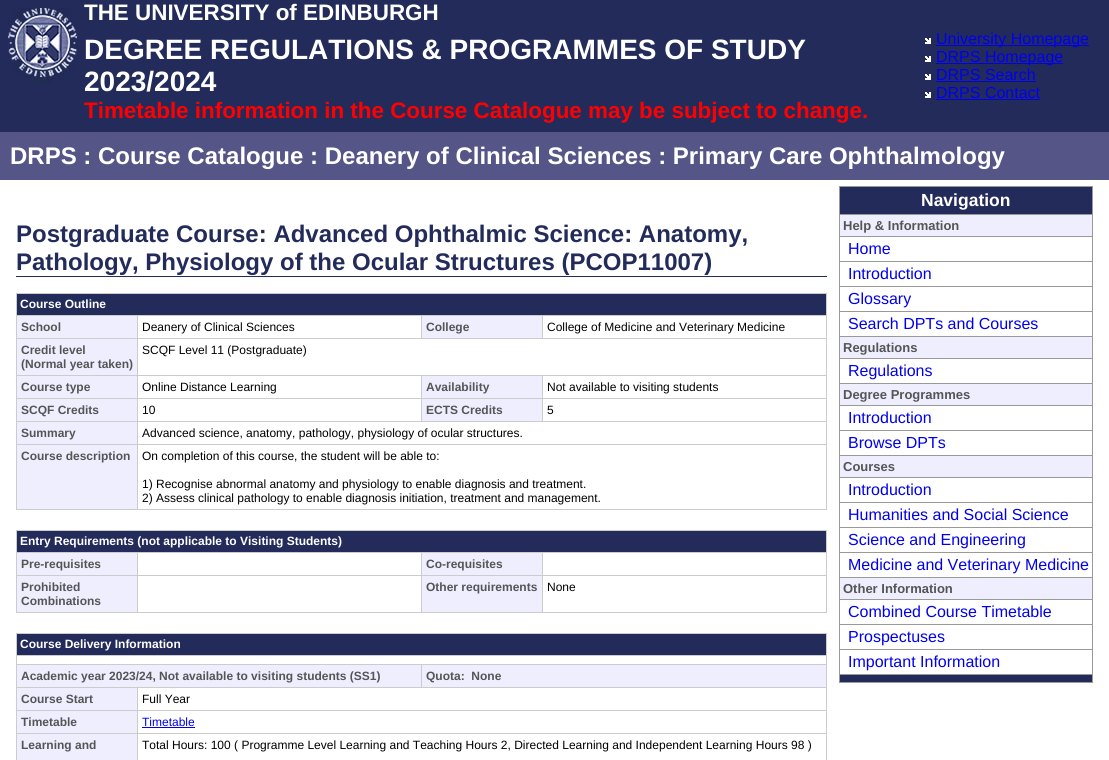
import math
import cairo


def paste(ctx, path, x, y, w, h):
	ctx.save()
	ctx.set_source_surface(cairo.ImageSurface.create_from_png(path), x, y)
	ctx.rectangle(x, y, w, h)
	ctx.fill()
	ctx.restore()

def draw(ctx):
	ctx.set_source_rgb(1, 1, 1)
	ctx.paint()
	ctx.set_source_rgb(0.137, 0.169, 0.353)
	ctx.rectangle(0, 0, 1109, 132)
	ctx.fill()
	paste(ctx, 'media/1.png', 8, 8, 72, 76)
	ctx.select_font_face('Liberation Sans', cairo.FONT_SLANT_NORMAL, cairo.FONT_WEIGHT_BOLD)
	ctx.set_font_size(22.4)
	ctx.set_source_rgb(1, 1, 1)
	ctx.move_to(84, 20)
	ctx.show_text('THE UNIVERSITY of EDINBURGH')
	ctx.set_font_size(28)
	ctx.move_to(84, 59)
	ctx.show_text('DEGREE REGULATIONS & PROGRAMMES OF STUDY')
	ctx.move_to(84, 91)
	ctx.show_text('2023/2024')
	ctx.set_font_size(22.4)
	ctx.set_source_rgb(1, 0, 0)
	ctx.move_to(84, 118)
	ctx.show_text('Timetable information in the Course Catalogue may be subject to change.')
	paste(ctx, 'media/2.png', 925, 38, 6, 6)
	ctx.set_source_rgb(0, 0, 0.933)
	ctx.rectangle(936, 45, 153, 1)
	ctx.fill()
	ctx.select_font_face('Liberation Sans')
	ctx.set_font_size(16)
	ctx.move_to(936, 44)
	ctx.show_text('University Homepage')
	paste(ctx, 'media/2.png', 925, 56, 6, 6)
	ctx.rectangle(936, 63, 127, 1)
	ctx.fill()
	ctx.move_to(936, 62)
	ctx.show_text('DRPS Homepage')
	paste(ctx, 'media/2.png', 925, 74, 6, 6)
	ctx.move_to(936, 80)
	ctx.show_text('DRPS Search')
	ctx.rectangle(936, 81, 100, 1)
	ctx.fill()
	paste(ctx, 'media/2.png', 925, 92, 6, 6)
	ctx.move_to(936, 98)
	ctx.show_text('DRPS Contact')
	ctx.rectangle(936, 99, 104, 1)
	ctx.fill()
	ctx.set_source_rgb(0.333, 0.333, 0.533)
	ctx.rectangle(0, 132, 1109, 48)
	ctx.fill()
	ctx.select_font_face('Liberation Sans', cairo.FONT_SLANT_NORMAL, cairo.FONT_WEIGHT_BOLD)
	ctx.set_font_size(24)
	ctx.set_source_rgb(1, 1, 1)
	ctx.move_to(10, 164)
	ctx.show_text('DRPS : Course Catalogue : Deanery of Clinical Sciences : Primary Care Ophthalmology')
	ctx.set_source_rgb(0.137, 0.169, 0.353)
	ctx.rectangle(16, 276, 811, 1)
	ctx.fill()
	ctx.move_to(16, 242)
	ctx.show_text('Postgraduate Course: Advanced Ophthalmic Science: Anatomy,')
	ctx.move_to(16, 270)
	ctx.show_text('Pathology, Physiology of the Ocular Structures (PCOP11007)')
	ctx.set_source_rgb(0.8, 0.8, 0.8)
	ctx.rectangle(16, 293, 811, 1)
	ctx.rectangle(826, 293, 1, 217)
	ctx.rectangle(16, 509, 811, 1)
	ctx.rectangle(16, 293, 1, 217)
	ctx.fill()
	ctx.set_source_rgb(0.137, 0.169, 0.353)
	ctx.rectangle(17, 294, 809, 21)
	ctx.fill()
	ctx.set_font_size(12)
	ctx.set_source_rgb(1, 1, 1)
	ctx.move_to(20, 308)
	ctx.show_text('Course Outline')
	ctx.set_source_rgb(0.933, 0.933, 1)
	ctx.rectangle(17, 316, 120, 22)
	ctx.fill()
	ctx.set_source_rgb(0.8, 0.8, 0.8)
	ctx.rectangle(542, 315, 285, 1)
	ctx.rectangle(137, 338, 690, 1)
	ctx.rectangle(542, 315, 1, 24)
	ctx.rectangle(421, 315, 122, 1)
	ctx.rectangle(421, 315, 1, 24)
	ctx.rectangle(137, 315, 285, 1)
	ctx.rectangle(542, 375, 285, 1)
	ctx.rectangle(542, 398, 285, 1)
	ctx.rectangle(137, 421, 690, 1)
	ctx.rectangle(542, 398, 1, 24)
	ctx.rectangle(421, 398, 122, 1)
	ctx.rectangle(542, 375, 1, 24)
	ctx.rectangle(421, 375, 122, 1)
	ctx.rectangle(421, 398, 1, 24)
	ctx.rectangle(137, 398, 285, 1)
	ctx.rectangle(421, 375, 1, 24)
	ctx.rectangle(137, 375, 285, 1)
	ctx.rectangle(137, 444, 690, 1)
	ctx.rectangle(137, 444, 1, 66)
	ctx.rectangle(16, 444, 122, 1)
	ctx.rectangle(137, 421, 1, 24)
	ctx.rectangle(16, 421, 122, 1)
	ctx.rectangle(137, 398, 1, 24)
	ctx.rectangle(16, 398, 122, 1)
	ctx.rectangle(137, 375, 1, 24)
	ctx.rectangle(16, 375, 122, 1)
	ctx.rectangle(137, 338, 1, 38)
	ctx.rectangle(16, 338, 122, 1)
	ctx.rectangle(137, 315, 1, 24)
	ctx.rectangle(16, 315, 122, 1)
	ctx.fill()
	ctx.set_source_rgb(0.333, 0.333, 0.333)
	ctx.move_to(21, 331)
	ctx.show_text('School')
	ctx.select_font_face('Liberation Sans')
	ctx.set_source_rgb(0, 0, 0)
	ctx.move_to(142, 331)
	ctx.show_text('Deanery of Clinical Sciences')
	ctx.set_source_rgb(0.933, 0.933, 1)
	ctx.rectangle(422, 316, 120, 22)
	ctx.fill()
	ctx.select_font_face('Liberation Sans', cairo.FONT_SLANT_NORMAL, cairo.FONT_WEIGHT_BOLD)
	ctx.set_source_rgb(0.333, 0.333, 0.333)
	ctx.move_to(426, 331)
	ctx.show_text('College')
	ctx.select_font_face('Liberation Sans')
	ctx.set_source_rgb(0, 0, 0)
	ctx.move_to(547, 331)
	ctx.show_text('College of Medicine and Veterinary Medicine')
	ctx.set_source_rgb(0.933, 0.933, 1)
	ctx.rectangle(17, 339, 120, 36)
	ctx.fill()
	ctx.select_font_face('Liberation Sans', cairo.FONT_SLANT_NORMAL, cairo.FONT_WEIGHT_BOLD)
	ctx.set_source_rgb(0.333, 0.333, 0.333)
	ctx.move_to(21, 354)
	ctx.show_text('Credit level')
	ctx.move_to(21, 368)
	ctx.show_text('(Normal year taken)')
	ctx.select_font_face('Liberation Sans')
	ctx.set_source_rgb(0, 0, 0)
	ctx.move_to(142, 354)
	ctx.show_text('SCQF Level 11 (Postgraduate)')
	ctx.set_source_rgb(0.933, 0.933, 1)
	ctx.rectangle(17, 376, 120, 22)
	ctx.fill()
	ctx.select_font_face('Liberation Sans', cairo.FONT_SLANT_NORMAL, cairo.FONT_WEIGHT_BOLD)
	ctx.set_source_rgb(0.333, 0.333, 0.333)
	ctx.move_to(21, 391)
	ctx.show_text('Course type')
	ctx.select_font_face('Liberation Sans')
	ctx.set_source_rgb(0, 0, 0)
	ctx.move_to(142, 391)
	ctx.show_text('Online Distance Learning')
	ctx.set_source_rgb(0.933, 0.933, 1)
	ctx.rectangle(422, 376, 120, 22)
	ctx.fill()
	ctx.select_font_face('Liberation Sans', cairo.FONT_SLANT_NORMAL, cairo.FONT_WEIGHT_BOLD)
	ctx.set_source_rgb(0.333, 0.333, 0.333)
	ctx.move_to(426, 391)
	ctx.show_text('Availability')
	ctx.select_font_face('Liberation Sans')
	ctx.set_source_rgb(0, 0, 0)
	ctx.move_to(547, 391)
	ctx.show_text('Not available to visiting students')
	ctx.set_source_rgb(0.933, 0.933, 1)
	ctx.rectangle(17, 399, 120, 22)
	ctx.fill()
	ctx.select_font_face('Liberation Sans', cairo.FONT_SLANT_NORMAL, cairo.FONT_WEIGHT_BOLD)
	ctx.set_source_rgb(0.333, 0.333, 0.333)
	ctx.move_to(21, 414)
	ctx.show_text('SCQF Credits')
	ctx.select_font_face('Liberation Sans')
	ctx.set_source_rgb(0, 0, 0)
	ctx.move_to(142, 414)
	ctx.show_text('10')
	ctx.set_source_rgb(0.933, 0.933, 1)
	ctx.rectangle(422, 399, 120, 22)
	ctx.fill()
	ctx.select_font_face('Liberation Sans', cairo.FONT_SLANT_NORMAL, cairo.FONT_WEIGHT_BOLD)
	ctx.set_source_rgb(0.333, 0.333, 0.333)
	ctx.move_to(426, 414)
	ctx.show_text('ECTS Credits')
	ctx.select_font_face('Liberation Sans')
	ctx.set_source_rgb(0, 0, 0)
	ctx.move_to(547, 414)
	ctx.show_text('5')
	ctx.set_source_rgb(0.933, 0.933, 1)
	ctx.rectangle(17, 422, 120, 22)
	ctx.fill()
	ctx.select_font_face('Liberation Sans', cairo.FONT_SLANT_NORMAL, cairo.FONT_WEIGHT_BOLD)
	ctx.set_source_rgb(0.333, 0.333, 0.333)
	ctx.move_to(21, 437)
	ctx.show_text('Summary')
	ctx.select_font_face('Liberation Sans')
	ctx.set_source_rgb(0, 0, 0)
	ctx.move_to(142, 437)
	ctx.show_text('Advanced science, anatomy, pathology, physiology of ocular structures.')
	ctx.set_source_rgb(0.933, 0.933, 1)
	ctx.rectangle(17, 445, 120, 64)
	ctx.fill()
	ctx.select_font_face('Liberation Sans', cairo.FONT_SLANT_NORMAL, cairo.FONT_WEIGHT_BOLD)
	ctx.set_source_rgb(0.333, 0.333, 0.333)
	ctx.move_to(21, 460)
	ctx.show_text('Course description')
	ctx.select_font_face('Liberation Sans')
	ctx.set_source_rgb(0, 0, 0)
	for x, y, s in [
		(142, 460, 'On completion of this course, the student will be able to:'),
		(142, 488, '1) Recognise abnormal anatomy and physiology to enable diagnosis and treatment.'),
		(142, 502, '2) Assess clinical pathology to enable diagnosis initiation, treatment and management.'),
	]:
		ctx.move_to(x, y)
		ctx.show_text(s)
	ctx.set_source_rgb(0.8, 0.8, 0.8)
	ctx.rectangle(16, 530, 811, 1)
	ctx.rectangle(826, 530, 1, 83)
	ctx.rectangle(16, 612, 811, 1)
	ctx.rectangle(16, 530, 1, 83)
	ctx.fill()
	ctx.set_source_rgb(0.137, 0.169, 0.353)
	ctx.rectangle(17, 531, 809, 21)
	ctx.fill()
	ctx.select_font_face('Liberation Sans', cairo.FONT_SLANT_NORMAL, cairo.FONT_WEIGHT_BOLD)
	ctx.set_source_rgb(1, 1, 1)
	ctx.move_to(20, 545)
	ctx.show_text('Entry Requirements (not applicable to Visiting Students)')
	ctx.set_source_rgb(0.933, 0.933, 1)
	ctx.rectangle(17, 553, 120, 22)
	ctx.fill()
	ctx.set_source_rgb(0.8, 0.8, 0.8)
	ctx.rectangle(542, 552, 285, 1)
	ctx.rectangle(542, 575, 285, 1)
	ctx.rectangle(542, 575, 1, 38)
	ctx.rectangle(421, 575, 122, 1)
	ctx.rectangle(542, 552, 1, 24)
	ctx.rectangle(421, 552, 122, 1)
	ctx.rectangle(421, 575, 1, 38)
	ctx.rectangle(137, 575, 285, 1)
	ctx.rectangle(421, 552, 1, 24)
	ctx.rectangle(137, 552, 285, 1)
	ctx.rectangle(137, 575, 1, 38)
	ctx.rectangle(16, 575, 122, 1)
	ctx.rectangle(137, 552, 1, 24)
	ctx.rectangle(16, 552, 122, 1)
	ctx.fill()
	ctx.set_source_rgb(0.333, 0.333, 0.333)
	ctx.move_to(21, 568)
	ctx.show_text('Pre-requisites')
	ctx.set_source_rgb(0.933, 0.933, 1)
	ctx.rectangle(422, 553, 120, 22)
	ctx.fill()
	ctx.set_source_rgb(0.333, 0.333, 0.333)
	ctx.move_to(426, 568)
	ctx.show_text('Co-requisites')
	ctx.set_source_rgb(0.933, 0.933, 1)
	ctx.rectangle(17, 576, 120, 36)
	ctx.fill()
	ctx.set_source_rgb(0.333, 0.333, 0.333)
	ctx.move_to(21, 591)
	ctx.show_text('Prohibited')
	ctx.move_to(21, 605)
	ctx.show_text('Combinations')
	ctx.set_source_rgb(0.933, 0.933, 1)
	ctx.rectangle(422, 576, 120, 36)
	ctx.fill()
	ctx.set_source_rgb(0.333, 0.333, 0.333)
	ctx.move_to(426, 591)
	ctx.show_text('Other requirements')
	ctx.select_font_face('Liberation Sans')
	ctx.set_source_rgb(0, 0, 0)
	ctx.move_to(547, 591)
	ctx.show_text('None')
	ctx.set_source_rgb(0.8, 0.8, 0.8)
	ctx.rectangle(16, 633, 811, 1)
	ctx.rectangle(826, 633, 1, 127)
	ctx.rectangle(16, 633, 1, 127)
	ctx.fill()
	ctx.set_source_rgb(0.137, 0.169, 0.353)
	ctx.rectangle(17, 634, 809, 21)
	ctx.fill()
	ctx.select_font_face('Liberation Sans', cairo.FONT_SLANT_NORMAL, cairo.FONT_WEIGHT_BOLD)
	ctx.set_source_rgb(1, 1, 1)
	ctx.move_to(20, 648)
	ctx.show_text('Course Delivery Information')
	ctx.set_source_rgb(0.8, 0.8, 0.8)
	ctx.rectangle(16, 655, 811, 1)
	ctx.fill()
	ctx.set_source_rgb(0.933, 0.933, 1)
	ctx.rectangle(17, 665, 404, 22)
	ctx.fill()
	ctx.set_source_rgb(0.8, 0.8, 0.8)
	ctx.rectangle(421, 664, 406, 1)
	ctx.rectangle(137, 687, 690, 1)
	ctx.rectangle(421, 664, 1, 24)
	ctx.rectangle(16, 664, 406, 1)
	ctx.fill()
	ctx.set_source_rgb(0.333, 0.333, 0.333)
	ctx.move_to(21, 680)
	ctx.show_text('Academic year 2023/24, Not available to visiting students (SS1)')
	ctx.set_source_rgb(0.933, 0.933, 1)
	ctx.rectangle(422, 665, 404, 22)
	ctx.fill()
	ctx.set_source_rgb(0.333, 0.333, 0.333)
	ctx.move_to(426, 680)
	ctx.show_text('Quota:  None')
	ctx.set_source_rgb(0.933, 0.933, 1)
	ctx.rectangle(17, 688, 120, 22)
	ctx.fill()
	ctx.set_source_rgb(0.8, 0.8, 0.8)
	ctx.rectangle(137, 710, 690, 1)
	ctx.rectangle(137, 733, 690, 1)
	ctx.rectangle(137, 733, 1, 27)
	ctx.rectangle(16, 733, 122, 1)
	ctx.rectangle(137, 710, 1, 24)
	ctx.rectangle(16, 710, 122, 1)
	ctx.rectangle(137, 687, 1, 24)
	ctx.rectangle(16, 687, 122, 1)
	ctx.fill()
	ctx.set_source_rgb(0.333, 0.333, 0.333)
	ctx.move_to(21, 703)
	ctx.show_text('Course Start')
	ctx.select_font_face('Liberation Sans')
	ctx.set_source_rgb(0, 0, 0)
	ctx.move_to(142, 703)
	ctx.show_text('Full Year')
	ctx.set_source_rgb(0.933, 0.933, 1)
	ctx.rectangle(17, 711, 120, 22)
	ctx.fill()
	ctx.select_font_face('Liberation Sans', cairo.FONT_SLANT_NORMAL, cairo.FONT_WEIGHT_BOLD)
	ctx.set_source_rgb(0.333, 0.333, 0.333)
	ctx.move_to(21, 726)
	ctx.show_text('Timetable')
	ctx.select_font_face('Liberation Sans')
	ctx.set_source_rgb(0, 0, 0.933)
	ctx.move_to(142, 726)
	ctx.show_text('Timetable')
	ctx.rectangle(142, 727, 53, 1)
	ctx.fill()
	ctx.set_source_rgb(0.933, 0.933, 1)
	ctx.rectangle(17, 734, 120, 26)
	ctx.fill()
	ctx.select_font_face('Liberation Sans', cairo.FONT_SLANT_NORMAL, cairo.FONT_WEIGHT_BOLD)
	ctx.set_source_rgb(0.333, 0.333, 0.333)
	ctx.move_to(21, 749)
	ctx.show_text('Learning and')
	ctx.select_font_face('Liberation Sans')
	ctx.set_source_rgb(0, 0, 0)
	ctx.move_to(142, 749)
	ctx.show_text('Total Hours: 100 ( Programme Level Learning and Teaching Hours 2, Directed Learning and Independent Learning Hours 98 )')
	ctx.set_source_rgb(0.6, 0.6, 0.6)
	ctx.rectangle(839, 186, 254, 497)
	ctx.fill()
	ctx.set_source_rgb(0.137, 0.169, 0.353)
	ctx.rectangle(840, 187, 252, 27)
	ctx.fill()
	ctx.select_font_face('Liberation Sans', cairo.FONT_SLANT_NORMAL, cairo.FONT_WEIGHT_BOLD)
	ctx.set_font_size(17.5)
	ctx.set_source_rgb(1, 1, 1)
	ctx.move_to(921, 206)
	ctx.show_text('Navigation')
	ctx.set_source_rgb(0.933, 0.933, 1)
	ctx.rectangle(840, 215, 252, 21)
	ctx.fill()
	ctx.set_font_size(13)
	ctx.set_source_rgb(0.333, 0.333, 0.333)
	ctx.move_to(843, 230)
	ctx.show_text('Help & Information')
	ctx.set_source_rgb(1, 1, 1)
	ctx.rectangle(840, 237, 252, 24)
	ctx.fill()
	ctx.select_font_face('Liberation Sans')
	ctx.set_font_size(16)
	ctx.set_source_rgb(0, 0, 0.933)
	ctx.move_to(848, 254)
	ctx.show_text('Home')
	ctx.set_source_rgb(1, 1, 1)
	ctx.rectangle(840, 262, 252, 24)
	ctx.fill()
	ctx.set_source_rgb(0, 0, 0.933)
	ctx.move_to(848, 279)
	ctx.show_text('Introduction')
	ctx.set_source_rgb(1, 1, 1)
	ctx.rectangle(840, 287, 252, 24)
	ctx.fill()
	ctx.set_source_rgb(0, 0, 0.933)
	ctx.move_to(848, 304)
	ctx.show_text('Glossary')
	ctx.set_source_rgb(1, 1, 1)
	ctx.rectangle(840, 312, 252, 24)
	ctx.fill()
	ctx.set_source_rgb(0, 0, 0.933)
	ctx.move_to(848, 329)
	ctx.show_text('Search DPTs and Courses')
	ctx.set_source_rgb(0.933, 0.933, 1)
	ctx.rectangle(840, 337, 252, 21)
	ctx.fill()
	ctx.select_font_face('Liberation Sans', cairo.FONT_SLANT_NORMAL, cairo.FONT_WEIGHT_BOLD)
	ctx.set_font_size(13)
	ctx.set_source_rgb(0.333, 0.333, 0.333)
	ctx.move_to(843, 352)
	ctx.show_text('Regulations')
	ctx.set_source_rgb(1, 1, 1)
	ctx.rectangle(840, 359, 252, 24)
	ctx.fill()
	ctx.select_font_face('Liberation Sans')
	ctx.set_font_size(16)
	ctx.set_source_rgb(0, 0, 0.933)
	ctx.move_to(848, 376)
	ctx.show_text('Regulations')
	ctx.set_source_rgb(0.933, 0.933, 1)
	ctx.rectangle(840, 384, 252, 21)
	ctx.fill()
	ctx.select_font_face('Liberation Sans', cairo.FONT_SLANT_NORMAL, cairo.FONT_WEIGHT_BOLD)
	ctx.set_font_size(13)
	ctx.set_source_rgb(0.333, 0.333, 0.333)
	ctx.move_to(843, 399)
	ctx.show_text('Degree Programmes')
	ctx.set_source_rgb(1, 1, 1)
	ctx.rectangle(840, 406, 252, 24)
	ctx.fill()
	ctx.select_font_face('Liberation Sans')
	ctx.set_font_size(16)
	ctx.set_source_rgb(0, 0, 0.933)
	ctx.move_to(848, 423)
	ctx.show_text('Introduction')
	ctx.set_source_rgb(1, 1, 1)
	ctx.rectangle(840, 431, 252, 24)
	ctx.fill()
	ctx.set_source_rgb(0, 0, 0.933)
	ctx.move_to(848, 448)
	ctx.show_text('Browse DPTs')
	ctx.set_source_rgb(0.933, 0.933, 1)
	ctx.rectangle(840, 456, 252, 21)
	ctx.fill()
	ctx.select_font_face('Liberation Sans', cairo.FONT_SLANT_NORMAL, cairo.FONT_WEIGHT_BOLD)
	ctx.set_font_size(13)
	ctx.set_source_rgb(0.333, 0.333, 0.333)
	ctx.move_to(843, 471)
	ctx.show_text('Courses')
	ctx.set_source_rgb(1, 1, 1)
	ctx.rectangle(840, 478, 252, 24)
	ctx.fill()
	ctx.select_font_face('Liberation Sans')
	ctx.set_font_size(16)
	ctx.set_source_rgb(0, 0, 0.933)
	ctx.move_to(848, 495)
	ctx.show_text('Introduction')
	ctx.set_source_rgb(1, 1, 1)
	ctx.rectangle(840, 503, 252, 24)
	ctx.fill()
	ctx.set_source_rgb(0, 0, 0.933)
	ctx.move_to(848, 520)
	ctx.show_text('Humanities and Social Science')
	ctx.set_source_rgb(1, 1, 1)
	ctx.rectangle(840, 528, 252, 24)
	ctx.fill()
	ctx.set_source_rgb(0, 0, 0.933)
	ctx.move_to(848, 545)
	ctx.show_text('Science and Engineering')
	ctx.set_source_rgb(1, 1, 1)
	ctx.rectangle(840, 553, 252, 24)
	ctx.fill()
	ctx.set_source_rgb(0, 0, 0.933)
	ctx.move_to(848, 570)
	ctx.show_text('Medicine and Veterinary Medicine')
	ctx.set_source_rgb(0.933, 0.933, 1)
	ctx.rectangle(840, 578, 252, 21)
	ctx.fill()
	ctx.select_font_face('Liberation Sans', cairo.FONT_SLANT_NORMAL, cairo.FONT_WEIGHT_BOLD)
	ctx.set_font_size(13)
	ctx.set_source_rgb(0.333, 0.333, 0.333)
	ctx.move_to(843, 593)
	ctx.show_text('Other Information')
	ctx.set_source_rgb(1, 1, 1)
	ctx.rectangle(840, 600, 252, 24)
	ctx.fill()
	ctx.select_font_face('Liberation Sans')
	ctx.set_font_size(16)
	ctx.set_source_rgb(0, 0, 0.933)
	ctx.move_to(848, 617)
	ctx.show_text('Combined Course Timetable')
	ctx.set_source_rgb(1, 1, 1)
	ctx.rectangle(840, 625, 252, 24)
	ctx.fill()
	ctx.set_source_rgb(0, 0, 0.933)
	ctx.move_to(848, 642)
	ctx.show_text('Prospectuses')
	ctx.set_source_rgb(1, 1, 1)
	ctx.rectangle(840, 650, 252, 24)
	ctx.fill()
	ctx.set_source_rgb(0, 0, 0.933)
	ctx.move_to(848, 667)
	ctx.show_text('Important Information')
	ctx.set_source_rgb(0.137, 0.169, 0.353)
	ctx.rectangle(840, 675, 252, 7)
	ctx.fill()


surface = cairo.ImageSurface(cairo.FORMAT_RGB24, 1109, 760)
ctx = cairo.Context(surface)
options = cairo.FontOptions()
options.set_hint_metrics(cairo.HINT_METRICS_OFF)
options.set_hint_style(cairo.HINT_STYLE_NONE)
ctx.set_font_options(options)
ctx.set_miter_limit(4)
draw(ctx)
surface.write_to_png('image.png')
